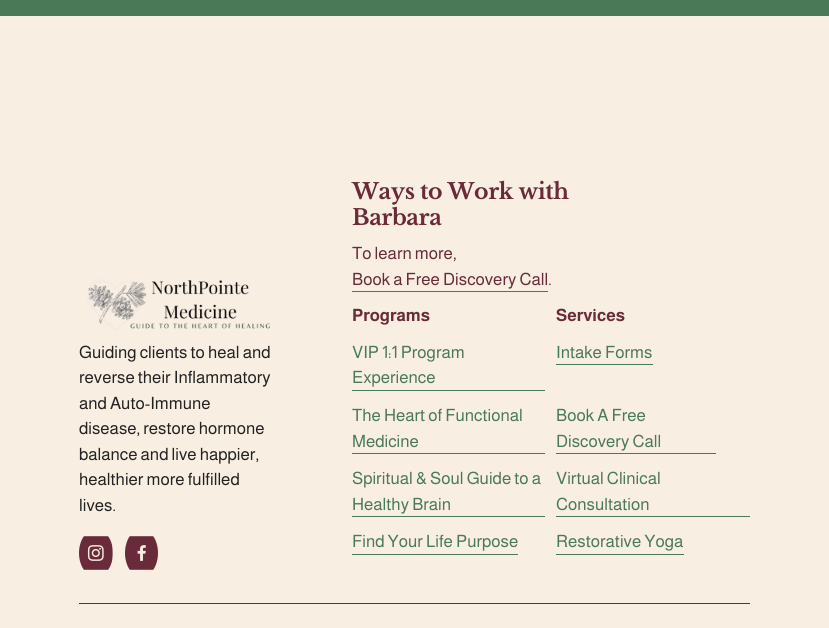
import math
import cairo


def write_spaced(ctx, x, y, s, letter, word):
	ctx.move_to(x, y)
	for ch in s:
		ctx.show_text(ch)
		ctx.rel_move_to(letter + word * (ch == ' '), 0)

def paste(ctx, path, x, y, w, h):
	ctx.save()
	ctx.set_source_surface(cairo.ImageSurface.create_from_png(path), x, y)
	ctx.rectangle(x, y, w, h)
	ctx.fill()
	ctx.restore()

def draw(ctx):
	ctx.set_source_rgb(0.286, 0.475, 0.337)
	ctx.paint()
	ctx.set_source_rgb(0.969, 0.933, 0.886)
	ctx.rectangle(0, 16, 829, 612)
	ctx.fill()
	ctx.select_font_face('Libre Baskerville', cairo.FONT_SLANT_NORMAL, cairo.FONT_WEIGHT_BOLD)
	ctx.set_font_size(22)
	ctx.set_source_rgb(0.412, 0.169, 0.224)
	write_spaced(ctx, 352, 199, 'Ways to Work with', -0.4, 0)
	write_spaced(ctx, 352, 225, 'Barbara', -0.4, 0)
	ctx.select_font_face('Almarai')
	ctx.set_font_size(17)
	ctx.move_to(352, 259)
	ctx.show_text('To learn more,')
	ctx.set_source_rgb(0.286, 0.475, 0.337)
	ctx.rectangle(352, 291, 196, 1)
	ctx.fill()
	ctx.set_source_rgb(0.412, 0.169, 0.224)
	ctx.move_to(352, 285)
	ctx.show_text('Book a Free Discovery Call.')
	paste(ctx, 'media/1.png', 87, 279, 183, 52)
	ctx.select_font_face('Almarai', cairo.FONT_SLANT_NORMAL, cairo.FONT_WEIGHT_BOLD)
	ctx.move_to(352, 321)
	ctx.show_text('Programs')
	ctx.move_to(556, 321)
	ctx.show_text('Services')
	ctx.select_font_face('Almarai')
	ctx.set_source_rgb(0.137, 0.133, 0.133)
	for x, y, s in [
		(79, 358, 'Guiding clients to heal and'),
		(79, 383, 'reverse their Inflammatory'),
		(79, 409, 'and Auto-Immune'),
		(79, 434, 'disease, restore hormone'),
		(79, 460, 'balance and live happier,'),
		(79, 485, 'healthier more fulfilled'),
		(79, 511, 'lives.'),
	]:
		ctx.move_to(x, y)
		ctx.show_text(s)
	ctx.set_source_rgb(0.286, 0.475, 0.337)
	ctx.rectangle(352, 390, 193, 1)
	ctx.fill()
	ctx.move_to(352, 358)
	ctx.show_text('VIP 1:1 Program')
	ctx.move_to(352, 383)
	ctx.show_text('Experience')
	ctx.rectangle(556, 364, 97, 1)
	ctx.fill()
	ctx.move_to(556, 358)
	ctx.show_text('Intake Forms')
	ctx.rectangle(352, 453, 193, 1)
	ctx.fill()
	ctx.move_to(352, 421)
	ctx.show_text('The Heart of Functional')
	ctx.move_to(352, 447)
	ctx.show_text('Medicine')
	ctx.rectangle(556, 453, 160, 1)
	ctx.fill()
	ctx.move_to(556, 421)
	ctx.show_text('Book A Free')
	ctx.move_to(556, 447)
	ctx.show_text('Discovery Call')
	ctx.rectangle(352, 516, 193, 1)
	ctx.fill()
	ctx.move_to(352, 484)
	ctx.show_text('Spiritual & Soul Guide to a')
	ctx.move_to(352, 510)
	ctx.show_text('Healthy Brain')
	ctx.rectangle(556, 516, 194, 1)
	ctx.fill()
	ctx.move_to(556, 484)
	ctx.show_text('Virtual Clinical')
	ctx.move_to(556, 510)
	ctx.show_text('Consultation')
	paste(ctx, 'media/2.png', 79, 536, 34, 34)
	paste(ctx, 'media/3.png', 125, 536, 33, 34)
	ctx.rectangle(352, 554, 166, 1)
	ctx.fill()
	ctx.move_to(352, 547)
	ctx.show_text('Find Your Life Purpose')
	ctx.rectangle(556, 554, 128, 1)
	ctx.fill()
	ctx.move_to(556, 547)
	ctx.show_text('Restorative Yoga')
	ctx.set_source_rgb(0.412, 0.169, 0.224)
	ctx.rectangle(79, 603, 671, 1)
	ctx.fill()


surface = cairo.ImageSurface(cairo.FORMAT_RGB24, 829, 628)
ctx = cairo.Context(surface)
options = cairo.FontOptions()
options.set_hint_metrics(cairo.HINT_METRICS_OFF)
options.set_hint_style(cairo.HINT_STYLE_NONE)
ctx.set_font_options(options)
ctx.set_miter_limit(4)
draw(ctx)
surface.write_to_png('image.png')
